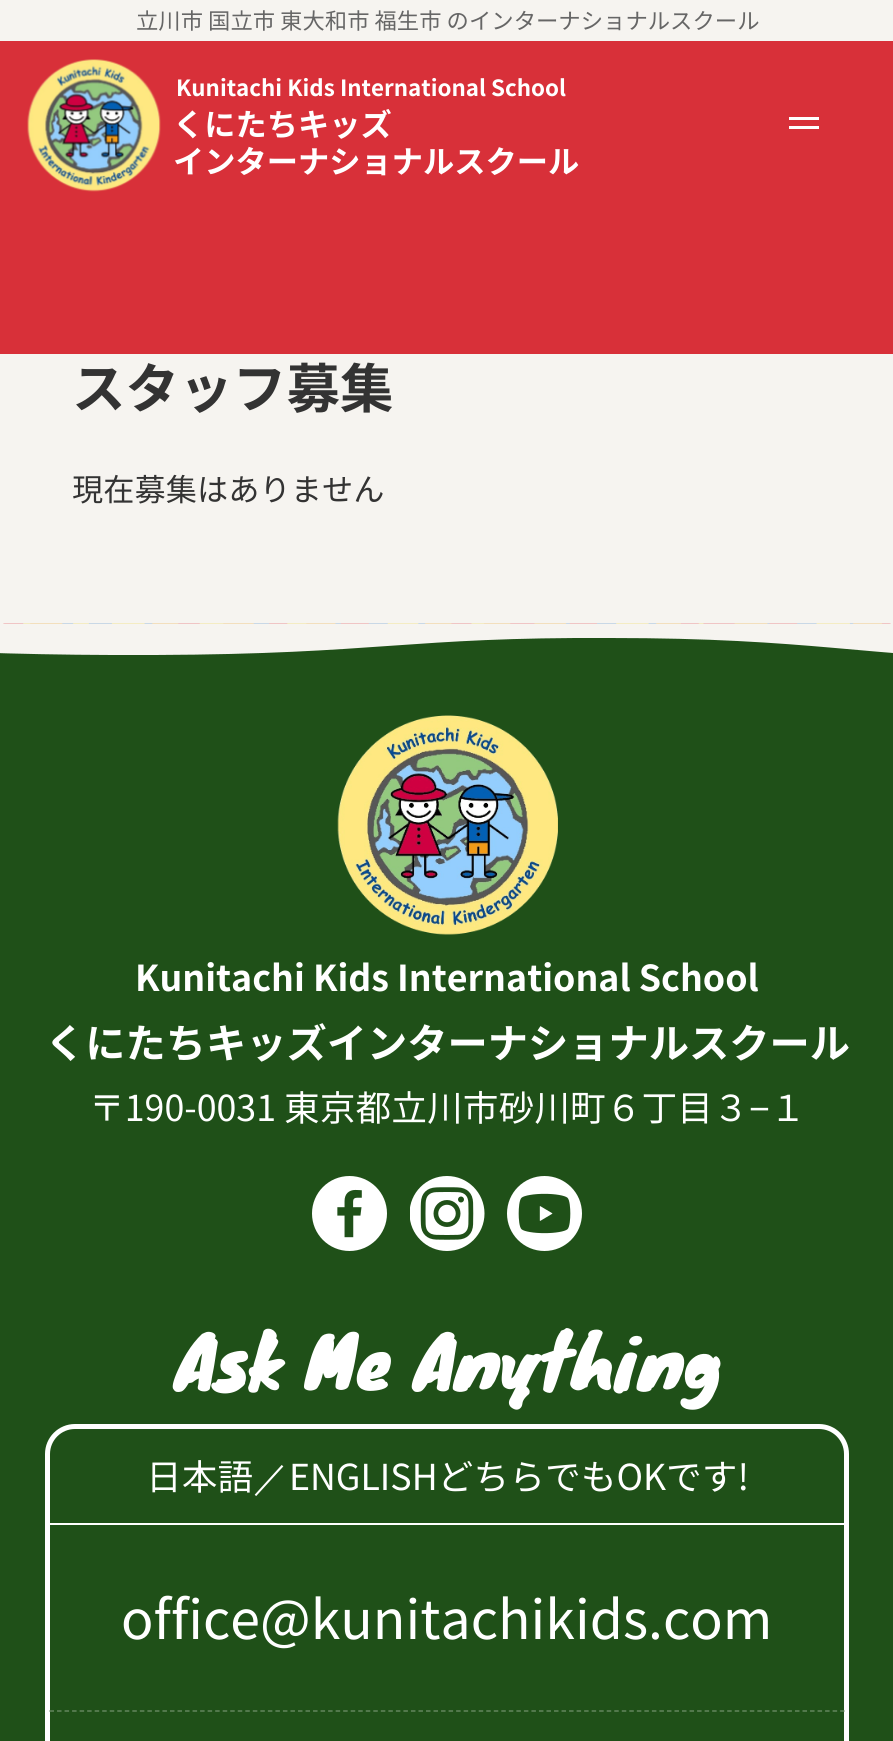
import math
import cairo


def round_path(ctx, x, y, w, h, r):
	ctx.new_sub_path()
	for i, (u, v) in enumerate([(x + w - r, y + h - r), (x + r, y + h - r), (x + r, y + r), (x + w - r, y + r)]):
		ctx.arc(u, v, r, i * math.pi / 2, (i + 1) * math.pi / 2)
	ctx.close_path()

def paste(ctx, path, x, y, w, h):
	ctx.save()
	ctx.set_source_surface(cairo.ImageSurface.create_from_png(path), x, y)
	ctx.rectangle(x, y, w, h)
	ctx.fill()
	ctx.restore()

def draw(ctx):
	ctx.set_source_rgb(0.961, 0.957, 0.941)
	ctx.paint()
	ctx.select_font_face('Noto Sans CJK JP')
	ctx.set_font_size(22.35)
	ctx.set_source_rgb(0.4, 0.4, 0.4)
	ctx.move_to(136, 29)
	ctx.show_text('立川市 国立市 東大和市 福生市 のインターナショナルスクール')
	ctx.set_source_rgb(0.847, 0.188, 0.224)
	ctx.rectangle(0, 41, 893, 313)
	ctx.fill()
	paste(ctx, 'media/1.png', 27, 59, 134, 133)
	ctx.select_font_face('Noto Sans CJK JP', cairo.FONT_SLANT_NORMAL, cairo.FONT_WEIGHT_BOLD)
	ctx.set_source_rgb(1, 1, 1)
	ctx.move_to(176, 96)
	ctx.show_text('Kunitachi Kids International School')
	ctx.set_font_size(31.25)
	ctx.move_to(173, 136)
	ctx.show_text('くにたちキッズ')
	ctx.move_to(173, 173)
	ctx.show_text('インターナショナルスクール')
	ctx.rectangle(789, 117, 30, 3)
	ctx.fill()
	ctx.rectangle(789, 126, 30, 3)
	ctx.fill()
	ctx.set_font_size(53.6)
	ctx.set_source_rgb(0.2, 0.2, 0.2)
	ctx.move_to(72, 408)
	ctx.show_text('スタッフ募集')
	ctx.select_font_face('Noto Sans CJK JP')
	ctx.set_font_size(31.25)
	ctx.move_to(72, 501)
	ctx.show_text('現在募集はありません')
	paste(ctx, 'media/2.png', 3, 623, 888, 1)
	ctx.set_source_rgb(0.122, 0.314, 0.094)
	ctx.new_path()
	ctx.move_to(-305, 643)
	ctx.curve_to(-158, 642, -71, 656, 155, 655)
	ctx.curve_to(380, 654, 408, 637, 610, 638)
	ctx.curve_to(812, 638, 865, 657, 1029, 660)
	ctx.curve_to(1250, 664, 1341, 649, 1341, 649)
	ctx.line_to(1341, 714)
	ctx.line_to(-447, 714)
	ctx.line_to(-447, 648)
	ctx.curve_to(-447, 648, -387, 643, -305, 643)
	ctx.fill()
	ctx.rectangle(0, 714, 893, 1027)
	ctx.fill()
	paste(ctx, 'media/3.png', 337, 715, 221, 220)
	ctx.select_font_face('Noto Sans CJK JP', cairo.FONT_SLANT_NORMAL, cairo.FONT_WEIGHT_BOLD)
	ctx.set_font_size(35.75)
	ctx.set_source_rgb(1, 1, 1)
	ctx.move_to(135, 991)
	ctx.show_text('Kunitachi Kids')
	ctx.move_to(397, 991)
	ctx.show_text('International School')
	ctx.set_font_size(40.25)
	ctx.move_to(45, 1058)
	ctx.show_text('くにたちキッズインターナショナルスクール')
	ctx.select_font_face('Noto Sans CJK JP')
	ctx.set_font_size(35.75)
	ctx.move_to(89, 1121)
	ctx.show_text('〒190-0031 東京都立川市砂川町６丁目３')
	ctx.select_font_face('Liberation Sans')
	ctx.move_to(749, 1121)
	ctx.show_text('−')
	ctx.select_font_face('Noto Sans CJK JP')
	ctx.move_to(770, 1121)
	ctx.show_text('１')
	paste(ctx, 'media/4.png', 312, 1176, 75, 75)
	paste(ctx, 'media/5.png', 410, 1176, 75, 75)
	paste(ctx, 'media/6.png', 507, 1176, 75, 75)
	ctx.select_font_face('Knewave')
	ctx.set_font_size(71.5)
	ctx.move_to(173, 1387)
	ctx.show_text('Ask Me Anything')
	round_path(ctx, 47.5, 1426.5, 799, 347, 27.5)
	ctx.set_line_width(5)
	ctx.stroke()
	ctx.rectangle(50, 1523, 795, 2)
	ctx.fill()
	ctx.select_font_face('Noto Sans CJK JP')
	ctx.set_font_size(35.75)
	ctx.move_to(146, 1490)
	ctx.show_text('日本語')
	ctx.select_font_face('WenQuanYi Zen Hei Medium')
	ctx.move_to(253, 1490)
	ctx.show_text('／')
	ctx.select_font_face('Noto Sans CJK JP')
	ctx.move_to(289, 1490)
	ctx.show_text('ENGLISHどちらでもOKです!')
	ctx.set_font_size(53.6)
	ctx.move_to(121, 1639)
	ctx.show_text('office@kunitachikids.com')
	ctx.new_path()
	ctx.move_to(49.5, 1711)
	ctx.line_to(844.5, 1711)
	ctx.set_source_rgb(0.384, 0.522, 0.365)
	ctx.set_line_width(1.5)
	ctx.set_dash([4.5, 3.03])
	ctx.stroke()


surface = cairo.ImageSurface(cairo.FORMAT_RGB24, 893, 1741)
ctx = cairo.Context(surface)
options = cairo.FontOptions()
options.set_hint_metrics(cairo.HINT_METRICS_OFF)
options.set_hint_style(cairo.HINT_STYLE_NONE)
ctx.set_font_options(options)
ctx.set_miter_limit(4)
draw(ctx)
surface.write_to_png('image.png')
